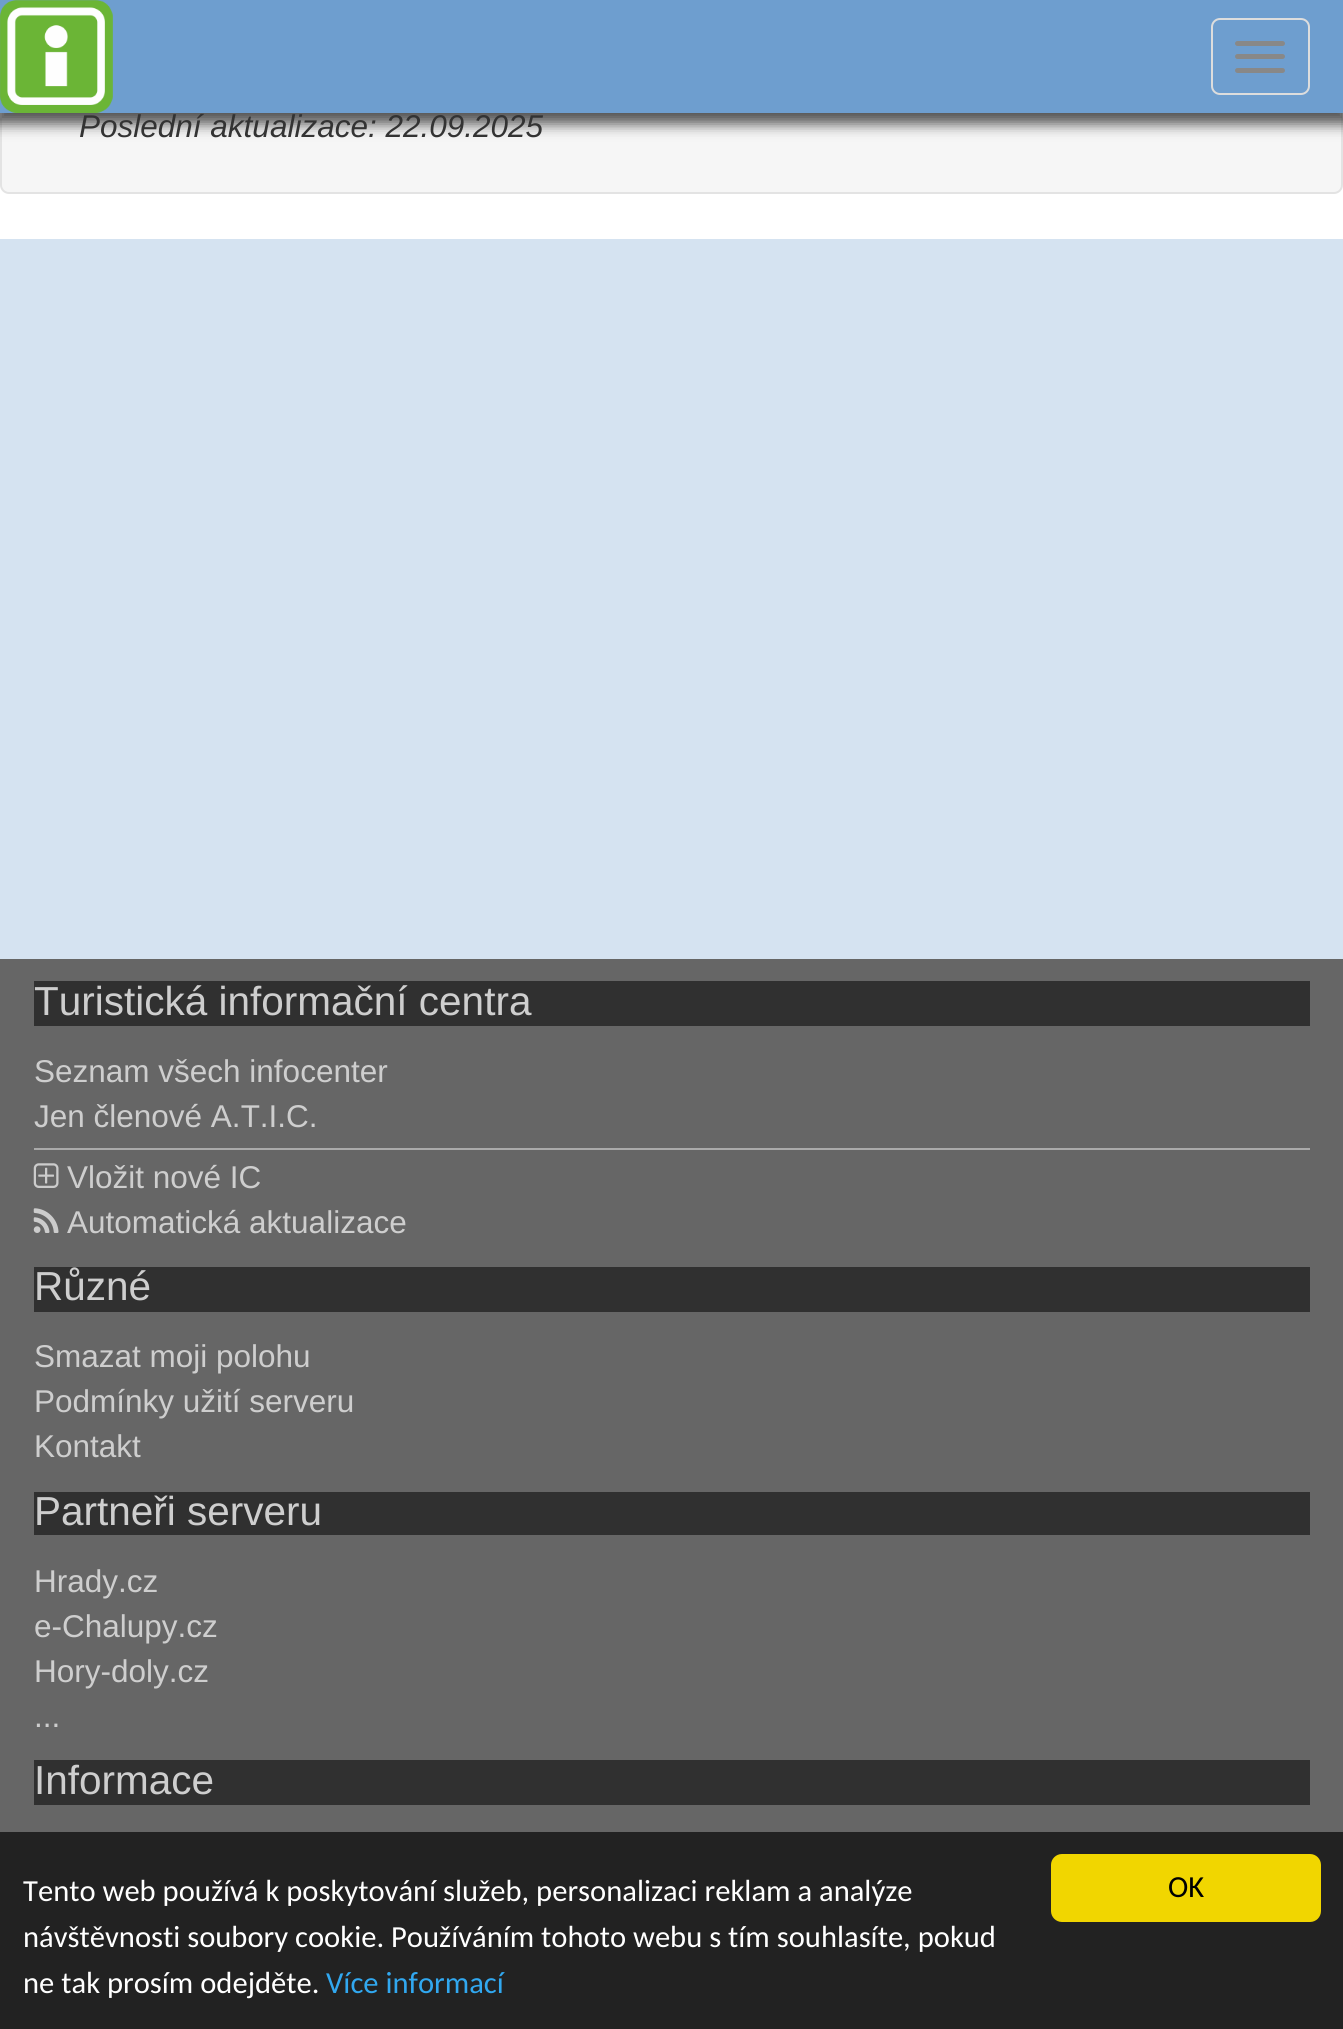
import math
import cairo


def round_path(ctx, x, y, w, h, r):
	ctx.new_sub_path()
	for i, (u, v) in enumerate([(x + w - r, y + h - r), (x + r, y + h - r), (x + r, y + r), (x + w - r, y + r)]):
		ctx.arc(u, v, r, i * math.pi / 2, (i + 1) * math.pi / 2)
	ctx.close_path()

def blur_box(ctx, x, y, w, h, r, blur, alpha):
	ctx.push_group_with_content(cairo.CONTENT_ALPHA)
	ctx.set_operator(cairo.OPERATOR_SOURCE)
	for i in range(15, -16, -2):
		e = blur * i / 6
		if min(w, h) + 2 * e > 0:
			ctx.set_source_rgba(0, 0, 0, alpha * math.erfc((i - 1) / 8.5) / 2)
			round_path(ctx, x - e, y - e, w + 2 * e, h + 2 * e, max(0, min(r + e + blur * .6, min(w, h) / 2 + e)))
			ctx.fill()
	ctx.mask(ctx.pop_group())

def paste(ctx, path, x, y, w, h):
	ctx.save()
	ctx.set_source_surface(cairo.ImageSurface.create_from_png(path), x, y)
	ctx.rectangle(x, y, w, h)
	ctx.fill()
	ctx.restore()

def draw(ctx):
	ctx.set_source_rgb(0.835, 0.89, 0.945)
	ctx.paint()
	ctx.set_source_rgb(1, 1, 1)
	ctx.rectangle(0, 185, 1343, 54)
	ctx.fill()
	ctx.set_source_rgb(0.961, 0.961, 0.961)
	round_path(ctx, 1, -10, 1341, 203, 8)
	ctx.fill_preserve()
	ctx.set_source_rgb(0.89, 0.89, 0.89)
	ctx.stroke()
	ctx.set_source_rgb(0.322, 0.322, 0.322)
	blur_box(ctx, -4, 2, 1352, 122, 0, 7, 1)
	ctx.set_source_rgb(0.431, 0.62, 0.812)
	ctx.rectangle(0, 0, 1343, 113)
	ctx.fill()
	paste(ctx, 'media/1.png', 0, 0, 113, 113)
	round_path(ctx, 1212, 19, 97, 75, 8)
	ctx.set_source_rgb(0.867, 0.867, 0.867)
	ctx.stroke()
	ctx.set_source_rgb(0.533, 0.533, 0.533)
	round_path(ctx, 1235, 41, 50, 5, 2.5)
	ctx.fill()
	round_path(ctx, 1235, 54, 50, 5, 2.5)
	ctx.fill()
	round_path(ctx, 1235, 68, 50, 5, 2.5)
	ctx.fill()
	ctx.select_font_face('Liberation Sans', cairo.FONT_SLANT_ITALIC)
	ctx.set_font_size(31.5)
	ctx.set_source_rgb(0.2, 0.2, 0.2)
	ctx.move_to(79, 137)
	ctx.show_text('Poslední aktualizace: 22.09.2025')
	ctx.set_source_rgb(0.4, 0.4, 0.4)
	ctx.rectangle(0, 959, 1343, 873)
	ctx.fill()
	ctx.set_source_rgb(0.188, 0.188, 0.188)
	ctx.rectangle(34, 981, 1276, 45)
	ctx.fill()
	ctx.select_font_face('Liberation Sans')
	ctx.set_font_size(40.5)
	ctx.set_source_rgb(0.808, 0.808, 0.808)
	ctx.move_to(34, 1015)
	ctx.show_text('Turistická informační centra')
	ctx.set_font_size(31.5)
	ctx.move_to(34, 1082)
	ctx.show_text('Seznam všech infocenter')
	ctx.move_to(34, 1127)
	ctx.show_text('Jen členové A.T.I.C.')
	ctx.set_source_rgb(0.667, 0.667, 0.667)
	ctx.rectangle(34, 1148, 1276, 2)
	ctx.fill()
	paste(ctx, 'media/2.png', 33, 1163, 26, 25)
	ctx.set_source_rgb(0.808, 0.808, 0.808)
	ctx.move_to(67, 1188)
	ctx.show_text('Vložit nové IC')
	paste(ctx, 'media/3.png', 33, 1208, 26, 25)
	ctx.move_to(67, 1233)
	ctx.show_text('Automatická aktualizace')
	ctx.set_source_rgb(0.188, 0.188, 0.188)
	ctx.rectangle(34, 1267, 1276, 45)
	ctx.fill()
	ctx.set_font_size(40.5)
	ctx.set_source_rgb(0.808, 0.808, 0.808)
	ctx.move_to(34, 1300)
	ctx.show_text('Různé')
	ctx.set_font_size(31.5)
	for x, y, s in [
		(34, 1367, 'Smazat moji polohu'),
		(34, 1412, 'Podmínky užití serveru'),
		(34, 1457, 'Kontakt'),
	]:
		ctx.move_to(x, y)
		ctx.show_text(s)
	ctx.set_source_rgb(0.188, 0.188, 0.188)
	ctx.rectangle(34, 1492, 1276, 43)
	ctx.fill()
	ctx.set_font_size(40.5)
	ctx.set_source_rgb(0.808, 0.808, 0.808)
	ctx.move_to(34, 1525)
	ctx.show_text('Partneři serveru')
	ctx.set_font_size(31.5)
	for x, y, s in [
		(34, 1592, 'Hrady.cz'),
		(34, 1637, 'e-Chalupy.cz'),
		(34, 1682, 'Hory-doly.cz'),
		(34, 1727, '...'),
	]:
		ctx.move_to(x, y)
		ctx.show_text(s)
	ctx.set_source_rgb(0.188, 0.188, 0.188)
	ctx.rectangle(34, 1760, 1276, 45)
	ctx.fill()
	ctx.set_font_size(40.5)
	ctx.set_source_rgb(0.808, 0.808, 0.808)
	ctx.move_to(34, 1794)
	ctx.show_text('Informace')
	ctx.set_source_rgb(0.133, 0.133, 0.133)
	ctx.rectangle(0, 1832, 1343, 197)
	ctx.fill()
	ctx.select_font_face('Carlito')
	ctx.set_font_size(30.6)
	ctx.set_source_rgb(1, 1, 1)
	for x, y, s in [
		(23, 1901, 'Tento web používá k poskytování služeb, personalizaci reklam a analýze'),
		(23, 1947, 'návštěvnosti soubory cookie. Používáním tohoto webu s tím souhlasíte, pokud'),
		(23, 1993, 'ne tak prosím odejděte.'),
	]:
		ctx.move_to(x, y)
		ctx.show_text(s)
	ctx.set_source_rgb(0.192, 0.659, 0.941)
	ctx.move_to(326, 1993)
	ctx.show_text('Více informací')
	ctx.set_source_rgb(0.945, 0.839, 0)
	round_path(ctx, 1051, 1854, 270, 68, 11)
	ctx.fill()
	ctx.set_source_rgb(0, 0, 0)
	ctx.move_to(1168, 1897)
	ctx.show_text('OK')


surface = cairo.ImageSurface(cairo.FORMAT_RGB24, 1343, 2029)
ctx = cairo.Context(surface)
options = cairo.FontOptions()
options.set_hint_metrics(cairo.HINT_METRICS_OFF)
options.set_hint_style(cairo.HINT_STYLE_NONE)
ctx.set_font_options(options)
ctx.set_miter_limit(4)
draw(ctx)
surface.write_to_png('image.png')
